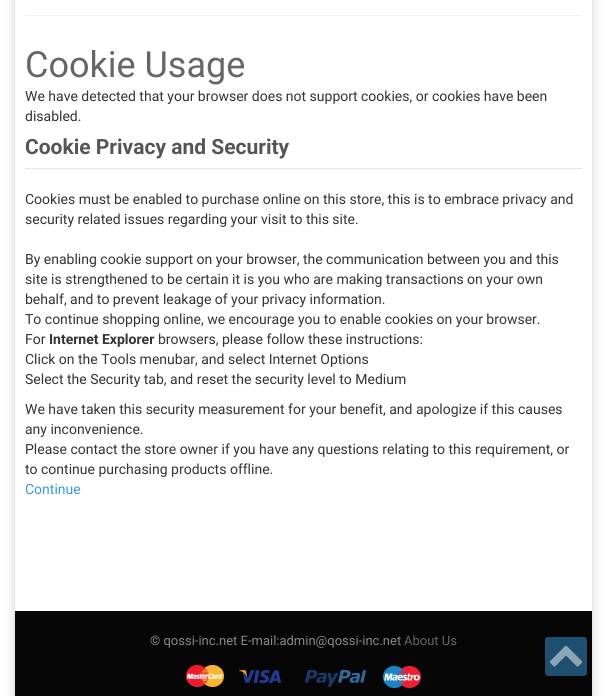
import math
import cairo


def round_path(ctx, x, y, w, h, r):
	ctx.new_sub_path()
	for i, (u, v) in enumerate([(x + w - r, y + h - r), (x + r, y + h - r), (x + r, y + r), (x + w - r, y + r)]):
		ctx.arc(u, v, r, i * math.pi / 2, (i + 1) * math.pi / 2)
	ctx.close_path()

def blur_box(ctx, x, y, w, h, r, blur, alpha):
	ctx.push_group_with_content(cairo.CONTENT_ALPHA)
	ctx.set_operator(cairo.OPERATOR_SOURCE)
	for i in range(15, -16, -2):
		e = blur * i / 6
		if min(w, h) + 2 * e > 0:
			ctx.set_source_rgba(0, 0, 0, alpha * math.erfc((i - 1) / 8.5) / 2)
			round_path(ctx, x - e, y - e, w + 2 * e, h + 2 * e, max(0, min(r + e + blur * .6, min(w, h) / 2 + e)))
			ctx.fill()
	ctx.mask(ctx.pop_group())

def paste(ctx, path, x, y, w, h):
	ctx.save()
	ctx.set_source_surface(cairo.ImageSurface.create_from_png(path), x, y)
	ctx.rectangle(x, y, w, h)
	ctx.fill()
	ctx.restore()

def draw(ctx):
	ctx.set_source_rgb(1, 1, 1)
	ctx.paint()
	ctx.save()
	ctx.set_fill_rule(cairo.FILL_RULE_EVEN_ODD)
	ctx.new_path()
	ctx.move_to(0, 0)
	ctx.line_to(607, 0)
	ctx.line_to(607, 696)
	ctx.line_to(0, 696)
	ctx.close_path()
	ctx.move_to(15, -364)
	ctx.line_to(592, -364)
	ctx.line_to(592, 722)
	ctx.line_to(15, 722)
	ctx.close_path()
	ctx.clip()
	ctx.set_source_rgb(0, 0, 0)
	blur_box(ctx, 15, -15, 577, 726, 0, 5, 0.2)
	ctx.restore()
	ctx.set_source_rgb(0.949, 0.949, 0.949)
	ctx.rectangle(25, 15, 557, 1)
	ctx.fill()
	ctx.select_font_face('Roboto')
	ctx.set_font_size(36)
	ctx.set_source_rgb(0.4, 0.4, 0.4)
	ctx.move_to(25, 77)
	ctx.show_text('Cookie Usage')
	ctx.set_font_size(14)
	ctx.set_source_rgb(0.2, 0.2, 0.2)
	ctx.move_to(25, 101)
	ctx.show_text('We have detected that your browser does not support cookies, or cookies have been')
	ctx.move_to(25, 121)
	ctx.show_text('disabled.')
	ctx.set_source_rgb(0.898, 0.898, 0.898)
	ctx.rectangle(25, 168, 557, 1)
	ctx.fill()
	ctx.select_font_face('Roboto', cairo.FONT_SLANT_NORMAL, cairo.FONT_WEIGHT_BOLD)
	ctx.set_font_size(21)
	ctx.set_source_rgb(0.333, 0.333, 0.333)
	ctx.move_to(25, 154)
	ctx.show_text('Cookie Privacy and Security')
	ctx.select_font_face('Roboto')
	ctx.set_font_size(14)
	ctx.set_source_rgb(0.2, 0.2, 0.2)
	for x, y, s in [
		(25, 204, 'Cookies must be enabled to purchase online on this store, this is to embrace privacy and'),
		(25, 224, 'security related issues regarding your visit to this site.'),
		(25, 264, 'By enabling cookie support on your browser, the communication between you and this'),
		(25, 284, 'site is strengthened to be certain it is you who are making transactions on your own'),
		(25, 304, 'behalf, and to prevent leakage of your privacy information.'),
		(25, 324, 'To continue shopping online, we encourage you to enable cookies on your browser.'),
		(25, 344, 'For'),
	]:
		ctx.move_to(x, y)
		ctx.show_text(s)
	ctx.select_font_face('Roboto', cairo.FONT_SLANT_NORMAL, cairo.FONT_WEIGHT_BOLD)
	ctx.move_to(49, 344)
	ctx.show_text('Internet Explorer')
	ctx.select_font_face('Roboto')
	for x, y, s in [
		(158, 344, 'browsers, please follow these instructions:'),
		(25, 364, 'Click on the Tools menubar, and select Internet Options'),
		(25, 384, 'Select the Security tab, and reset the security level to Medium'),
		(25, 414, 'We have taken this security measurement for your benefit, and apologize if this causes'),
		(25, 434, 'any inconvenience.'),
		(25, 454, 'Please contact the store owner if you have any questions relating to this requirement, or'),
		(25, 474, 'to continue purchasing products offline.'),
	]:
		ctx.move_to(x, y)
		ctx.show_text(s)
	ctx.set_source_rgb(0.216, 0.604, 0.863)
	ctx.move_to(25, 494)
	ctx.show_text('Continue')
	ctx.set_source_rgb(0.024, 0.024, 0.024)
	ctx.rectangle(15, 611, 577, 85)
	ctx.fill()
	ctx.set_font_size(13)
	ctx.set_source_rgb(0.537, 0.537, 0.537)
	ctx.move_to(150, 645)
	ctx.show_text('© qossi-inc.net E-mail:admin@qossi-inc.net')
	ctx.set_source_rgb(0.4, 0.4, 0.4)
	ctx.move_to(404, 645)
	ctx.show_text('About Us')
	paste(ctx, 'media/1.png', 186, 665, 235, 23)
	ctx.set_source_rgb(0.118, 0.31, 0.435)
	round_path(ctx, 545, 637, 42, 39, 3)
	ctx.fill()
	paste(ctx, 'media/2.png', 549, 645, 34, 22)


surface = cairo.ImageSurface(cairo.FORMAT_RGB24, 607, 696)
ctx = cairo.Context(surface)
options = cairo.FontOptions()
options.set_hint_metrics(cairo.HINT_METRICS_OFF)
options.set_hint_style(cairo.HINT_STYLE_NONE)
ctx.set_font_options(options)
ctx.set_miter_limit(4)
draw(ctx)
surface.write_to_png('image.png')
